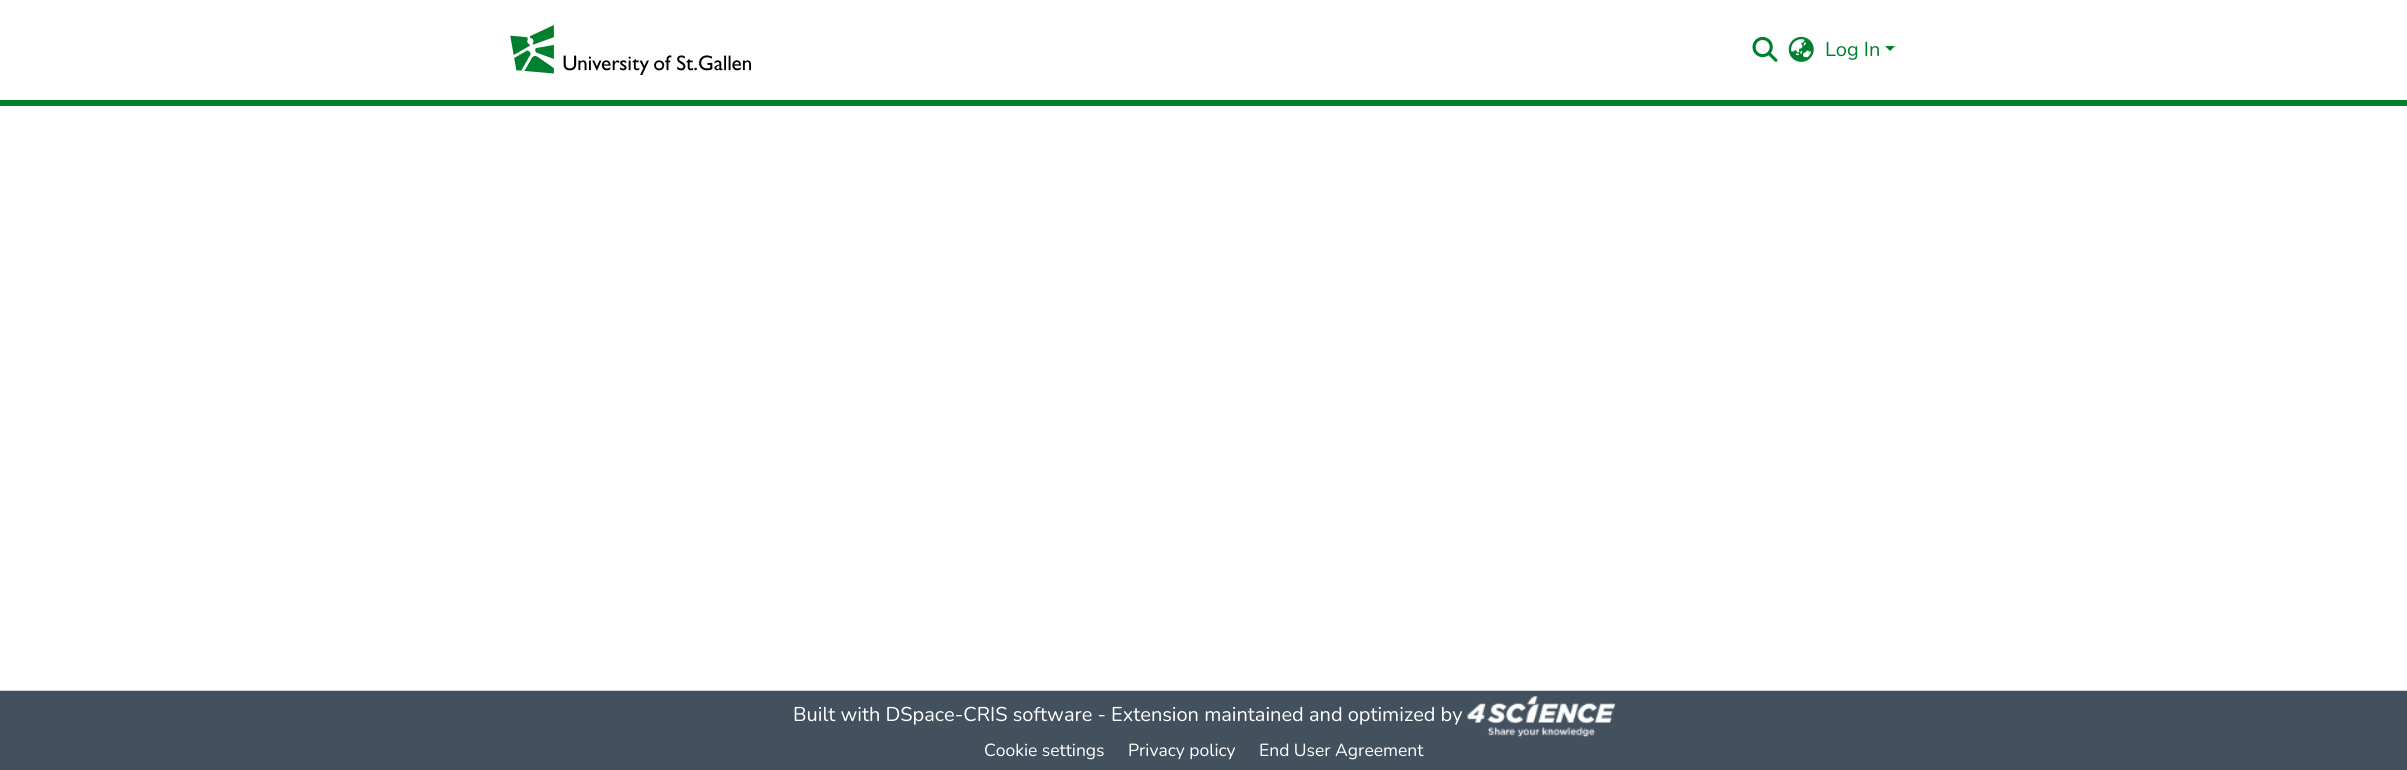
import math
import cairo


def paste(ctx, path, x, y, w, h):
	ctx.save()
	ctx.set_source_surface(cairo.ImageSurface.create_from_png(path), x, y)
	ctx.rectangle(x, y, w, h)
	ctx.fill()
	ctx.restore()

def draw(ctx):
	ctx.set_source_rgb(1, 1, 1)
	ctx.paint()
	ctx.set_source_rgb(0, 0.502, 0.184)
	ctx.rectangle(0, 100, 2407, 6)
	ctx.fill()
	paste(ctx, 'media/1.png', 510, 25, 241, 50)
	paste(ctx, 'media/2.png', 1752, 36, 26, 26)
	paste(ctx, 'media/3.png', 1788, 36, 26, 26)
	ctx.select_font_face('Nunito')
	ctx.set_font_size(20)
	ctx.move_to(1825, 56)
	ctx.show_text('Log In')
	ctx.new_path()
	ctx.move_to(1885, 46)
	ctx.line_to(1895, 46)
	ctx.line_to(1890, 51)
	ctx.close_path()
	ctx.fill()
	ctx.set_source_rgb(0.263, 0.318, 0.373)
	ctx.rectangle(0, 691, 2407, 79)
	ctx.fill()
	ctx.set_source_rgb(0.808, 0.831, 0.855)
	ctx.rectangle(0, 690, 2407, 1)
	ctx.fill()
	ctx.set_source_rgb(1, 1, 1)
	ctx.move_to(793, 721)
	ctx.show_text('Built with DSpace-CRIS software - Extension maintained and optimized by')
	paste(ctx, 'media/4.png', 1467, 696, 148, 41)
	ctx.set_font_size(17.5)
	ctx.move_to(984, 756)
	ctx.show_text('Cookie settings')
	ctx.set_source_rgb(0.286, 0.314, 0.341)
	ctx.rectangle(1115, 736, 1, 29)
	ctx.fill()
	ctx.set_source_rgb(1, 1, 1)
	ctx.move_to(1128, 756)
	ctx.show_text('Privacy policy')
	ctx.set_source_rgb(0.286, 0.314, 0.341)
	ctx.rectangle(1246, 736, 1, 29)
	ctx.fill()
	ctx.set_source_rgb(1, 1, 1)
	ctx.move_to(1259, 756)
	ctx.show_text('End User Agreement')


surface = cairo.ImageSurface(cairo.FORMAT_RGB24, 2407, 770)
ctx = cairo.Context(surface)
options = cairo.FontOptions()
options.set_hint_metrics(cairo.HINT_METRICS_OFF)
options.set_hint_style(cairo.HINT_STYLE_NONE)
ctx.set_font_options(options)
ctx.set_miter_limit(4)
draw(ctx)
surface.write_to_png('image.png')
